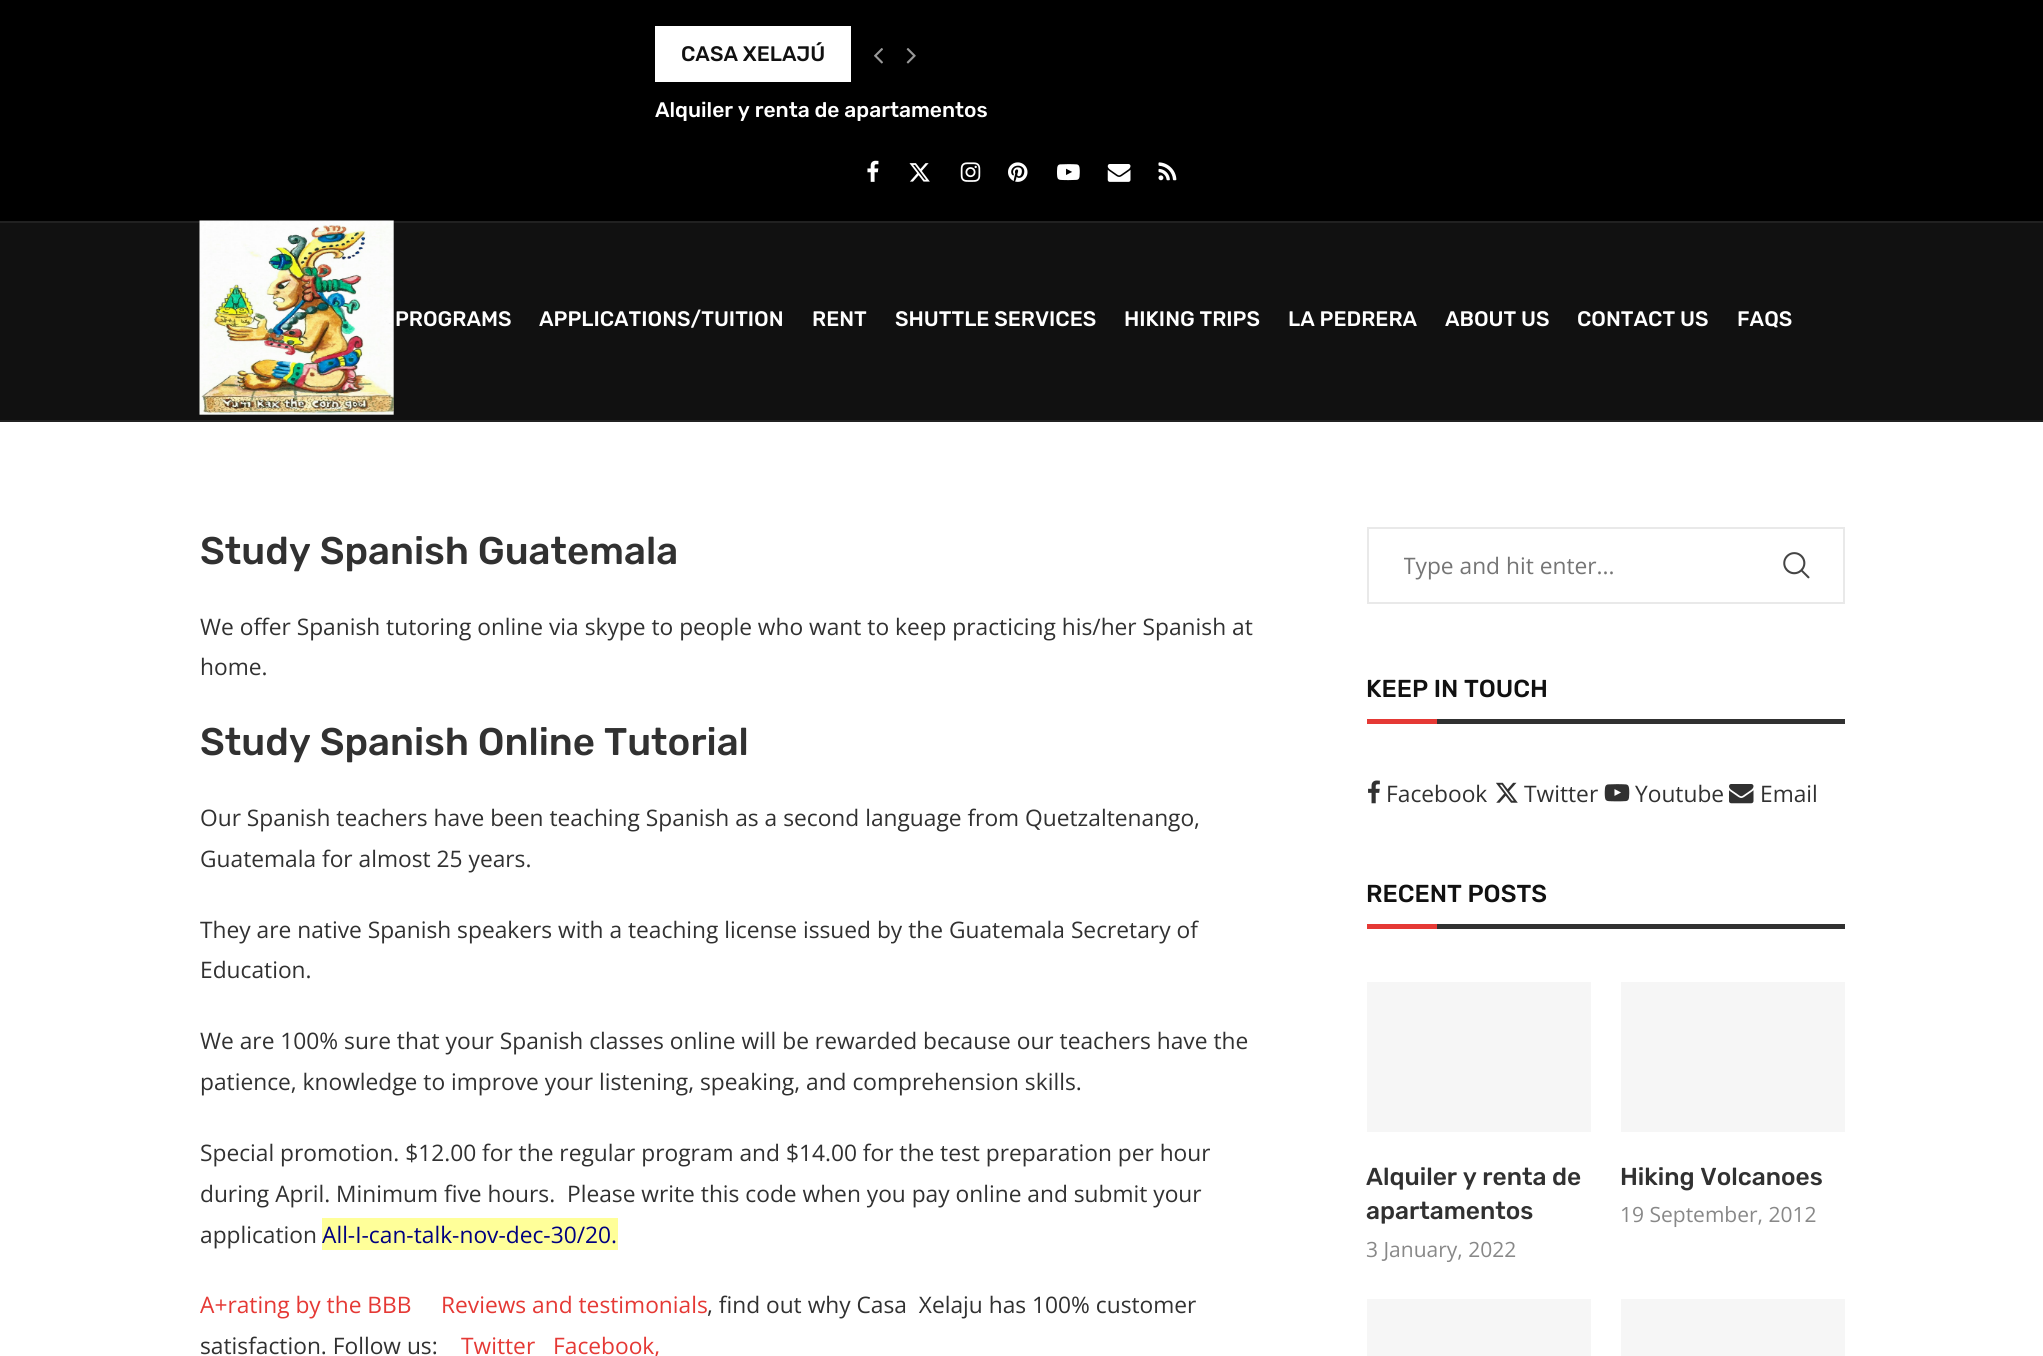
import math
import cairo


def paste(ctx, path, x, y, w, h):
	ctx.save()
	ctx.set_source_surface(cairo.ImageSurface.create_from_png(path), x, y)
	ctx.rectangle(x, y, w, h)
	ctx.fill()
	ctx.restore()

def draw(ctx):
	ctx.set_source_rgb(1, 1, 1)
	ctx.paint()
	ctx.set_source_rgb(0, 0, 0)
	ctx.rectangle(0, 0, 2043, 221)
	ctx.fill()
	ctx.set_source_rgb(1, 1, 1)
	ctx.rectangle(655, 26, 196, 56)
	ctx.fill()
	ctx.select_font_face('Rubik Medium')
	ctx.set_font_size(21)
	ctx.set_source_rgb(0.067, 0.067, 0.067)
	ctx.move_to(681, 61)
	ctx.show_text('CASA XELAJÚ')
	paste(ctx, 'media/1.png', 874, 48, 9, 16)
	paste(ctx, 'media/2.png', 906, 48, 10, 16)
	ctx.set_source_rgb(1, 1, 1)
	ctx.move_to(655, 117)
	ctx.show_text('Alquiler y renta de apartamentos')
	paste(ctx, 'media/3.png', 867, 160, 12, 22)
	paste(ctx, 'media/4.png', 909, 163, 21, 19)
	paste(ctx, 'media/5.png', 960, 162, 21, 20)
	paste(ctx, 'media/6.png', 1008, 162, 20, 20)
	paste(ctx, 'media/7.png', 1057, 164, 23, 17)
	paste(ctx, 'media/8.png', 1107, 164, 24, 18)
	paste(ctx, 'media/9.png', 1158, 162, 19, 19)
	ctx.set_source_rgb(0.067, 0.067, 0.067)
	ctx.rectangle(0, 223, 2043, 197)
	ctx.fill()
	ctx.set_source_rgb(0.129, 0.129, 0.129)
	ctx.rectangle(0, 221, 2043, 2)
	ctx.rectangle(0, 420, 2043, 2)
	ctx.fill()
	paste(ctx, 'media/10.png', 199, 220, 195, 195)
	ctx.set_source_rgb(1, 1, 1)
	for x, y, s in [
		(395, 326, 'PROGRAMS'),
		(539, 326, 'APPLICATIONS/TUITION'),
		(812, 326, 'RENT'),
		(895, 326, 'SHUTTLE SERVICES'),
		(1124, 326, 'HIKING TRIPS'),
		(1288, 326, 'LA PEDRERA'),
		(1445, 326, 'ABOUT US'),
		(1577, 326, 'CONTACT US'),
		(1737, 326, 'FAQS'),
	]:
		ctx.move_to(x, y)
		ctx.show_text(s)
	ctx.set_font_size(38.5)
	ctx.set_source_rgb(0.192, 0.192, 0.192)
	ctx.move_to(200, 564)
	ctx.show_text('Study Spanish Guatemala')
	ctx.select_font_face('Open Sans')
	ctx.set_font_size(22.75)
	ctx.move_to(200, 635)
	ctx.show_text('We offer Spanish tutoring online via skype to people who want to keep practicing his/her Spanish at')
	ctx.move_to(200, 675)
	ctx.show_text('home.')
	ctx.select_font_face('Rubik Medium')
	ctx.set_font_size(38.5)
	ctx.move_to(200, 755)
	ctx.show_text('Study Spanish Online Tutorial')
	ctx.select_font_face('Open Sans')
	ctx.set_font_size(22.75)
	for x, y, s in [
		(200, 826, 'Our Spanish teachers have been teaching Spanish as a second language from Quetzaltenango,'),
		(200, 867, 'Guatemala for almost 25 years.'),
		(200, 938, 'They are native Spanish speakers with a teaching license issued by the Guatemala Secretary of'),
		(200, 978, 'Education.'),
		(200, 1049, 'We are 100% sure that your Spanish classes online will be rewarded because our teachers have the'),
		(200, 1090, 'patience, knowledge to improve your listening, speaking, and comprehension skills.'),
		(200, 1161, 'Special promotion. $12.00 for the regular program and $14.00 for the test preparation per hour'),
		(200, 1202, 'during April. Minimum five hours.  Please write this code when you pay online and submit your'),
		(200, 1243, 'application'),
	]:
		ctx.move_to(x, y)
		ctx.show_text(s)
	ctx.set_source_rgb(1, 1, 0.6)
	ctx.rectangle(322, 1218, 296, 32)
	ctx.fill()
	ctx.set_source_rgb(0, 0, 0.502)
	ctx.move_to(322, 1243)
	ctx.show_text('All-I-can-talk-nov-dec-30/20.')
	ctx.set_source_rgb(0.898, 0.224, 0.208)
	ctx.move_to(200, 1313)
	ctx.show_text('A+rating by the BBB')
	ctx.move_to(441, 1313)
	ctx.show_text('Reviews and testimonials')
	ctx.set_source_rgb(0.192, 0.192, 0.192)
	ctx.move_to(707, 1313)
	ctx.show_text(', find out why Casa  Xelaju has 100% customer')
	ctx.move_to(200, 1354)
	ctx.show_text('satisfaction. Follow us:')
	ctx.set_source_rgb(0.898, 0.224, 0.208)
	ctx.move_to(461, 1354)
	ctx.show_text('Twitter')
	ctx.move_to(553, 1354)
	ctx.show_text('Facebook,')
	ctx.rectangle(1368, 528, 476, 75)
	ctx.set_source_rgb(0.914, 0.914, 0.914)
	ctx.stroke()
	ctx.save()
	ctx.rectangle(1404, 550, 369, 31)
	ctx.clip()
	ctx.set_source_rgb(0.459, 0.459, 0.459)
	ctx.move_to(1403, 574)
	ctx.show_text('Type and hit enter...')
	ctx.restore()
	paste(ctx, 'media/11.png', 1783, 552, 27, 27)
	ctx.set_source_rgb(0.192, 0.192, 0.192)
	ctx.rectangle(1437, 719, 408, 5)
	ctx.fill()
	ctx.select_font_face('Rubik Medium')
	ctx.set_font_size(24.5)
	ctx.set_source_rgb(0.067, 0.067, 0.067)
	ctx.move_to(1366, 697)
	ctx.show_text('KEEP IN TOUCH')
	ctx.set_source_rgb(0.898, 0.224, 0.208)
	ctx.rectangle(1367, 719, 70, 5)
	ctx.fill()
	paste(ctx, 'media/12.png', 1368, 780, 12, 24)
	ctx.select_font_face('Open Sans')
	ctx.set_font_size(22.75)
	ctx.set_source_rgb(0.192, 0.192, 0.192)
	ctx.move_to(1386, 802)
	ctx.show_text('Facebook')
	paste(ctx, 'media/13.png', 1496, 782, 22, 21)
	ctx.move_to(1524, 802)
	ctx.show_text('Twitter')
	paste(ctx, 'media/14.png', 1604, 784, 26, 18)
	ctx.move_to(1635, 802)
	ctx.show_text('Youtube')
	paste(ctx, 'media/15.png', 1729, 784, 25, 20)
	ctx.move_to(1760, 802)
	ctx.show_text('Email')
	ctx.rectangle(1437, 924, 408, 5)
	ctx.fill()
	ctx.select_font_face('Rubik Medium')
	ctx.set_font_size(24.5)
	ctx.set_source_rgb(0.067, 0.067, 0.067)
	ctx.move_to(1366, 902)
	ctx.show_text('RECENT POSTS')
	ctx.set_source_rgb(0.898, 0.224, 0.208)
	ctx.rectangle(1367, 924, 70, 5)
	ctx.fill()
	ctx.set_source_rgb(0.961, 0.961, 0.961)
	ctx.rectangle(1367, 982, 224, 150)
	ctx.fill()
	ctx.set_source_rgb(0.192, 0.192, 0.192)
	ctx.move_to(1366, 1185)
	ctx.show_text('Alquiler y renta de')
	ctx.move_to(1366, 1219)
	ctx.show_text('apartamentos')
	ctx.select_font_face('Open Sans')
	ctx.set_font_size(21)
	ctx.set_source_rgb(0.533, 0.533, 0.533)
	ctx.move_to(1366, 1257)
	ctx.show_text('3 January, 2022')
	ctx.set_source_rgb(0.961, 0.961, 0.961)
	ctx.rectangle(1621, 982, 224, 150)
	ctx.fill()
	ctx.select_font_face('Rubik Medium')
	ctx.set_font_size(24.5)
	ctx.set_source_rgb(0.192, 0.192, 0.192)
	ctx.move_to(1620, 1185)
	ctx.show_text('Hiking Volcanoes')
	ctx.select_font_face('Open Sans')
	ctx.set_font_size(21)
	ctx.set_source_rgb(0.533, 0.533, 0.533)
	ctx.move_to(1620, 1222)
	ctx.show_text('19 September, 2012')
	ctx.set_source_rgb(0.961, 0.961, 0.961)
	ctx.rectangle(1367, 1299, 224, 57)
	ctx.fill()
	ctx.rectangle(1621, 1299, 224, 57)
	ctx.fill()


surface = cairo.ImageSurface(cairo.FORMAT_RGB24, 2043, 1356)
ctx = cairo.Context(surface)
options = cairo.FontOptions()
options.set_hint_metrics(cairo.HINT_METRICS_OFF)
options.set_hint_style(cairo.HINT_STYLE_NONE)
ctx.set_font_options(options)
ctx.set_miter_limit(4)
draw(ctx)
surface.write_to_png('image.png')
